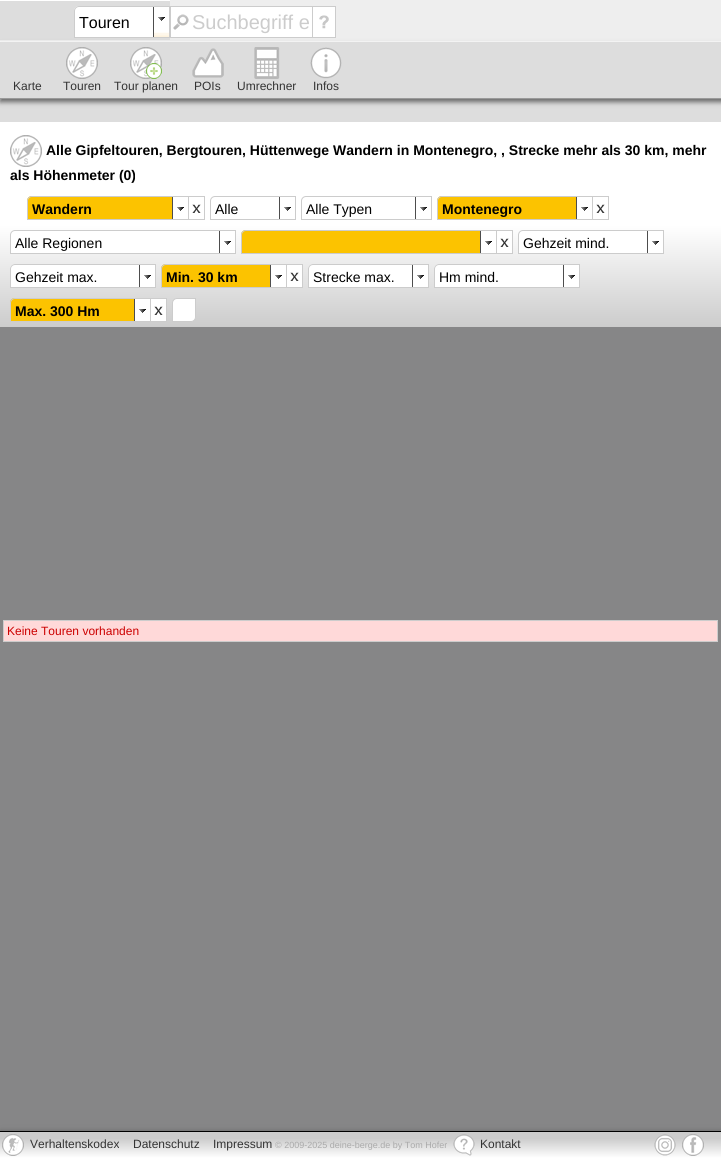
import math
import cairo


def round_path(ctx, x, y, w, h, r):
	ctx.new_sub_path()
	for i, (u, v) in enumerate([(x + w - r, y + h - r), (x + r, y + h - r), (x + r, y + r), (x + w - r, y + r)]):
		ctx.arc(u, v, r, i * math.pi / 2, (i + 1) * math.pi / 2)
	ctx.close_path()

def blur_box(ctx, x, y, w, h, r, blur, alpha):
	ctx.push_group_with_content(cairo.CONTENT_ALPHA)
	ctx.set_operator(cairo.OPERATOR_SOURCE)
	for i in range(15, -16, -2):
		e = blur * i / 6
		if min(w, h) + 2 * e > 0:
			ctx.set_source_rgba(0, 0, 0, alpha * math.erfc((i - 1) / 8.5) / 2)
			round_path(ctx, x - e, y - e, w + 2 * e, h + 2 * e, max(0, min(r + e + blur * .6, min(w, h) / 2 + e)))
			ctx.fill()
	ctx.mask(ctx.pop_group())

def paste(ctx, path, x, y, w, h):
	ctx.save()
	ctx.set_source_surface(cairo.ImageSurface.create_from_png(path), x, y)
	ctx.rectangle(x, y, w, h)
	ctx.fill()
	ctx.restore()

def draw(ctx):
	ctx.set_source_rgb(0.525, 0.525, 0.529)
	ctx.paint()
	ctx.set_source_rgb(0.867, 0.867, 0.867)
	ctx.rectangle(0, 42, 721, 80)
	ctx.fill()
	ctx.set_source_rgb(0.933, 0.933, 0.933)
	ctx.rectangle(0, 0, 721, 41)
	ctx.fill()
	ctx.set_source_rgb(1, 1, 1)
	ctx.rectangle(0, 41, 721, 1)
	ctx.fill()
	ctx.set_source_rgb(0.867, 0.867, 0.867)
	ctx.rectangle(0, 1, 170, 39)
	ctx.fill()
	ctx.set_source_rgb(1, 1, 1)
	ctx.rectangle(0, 0, 170, 1)
	ctx.fill()
	ctx.new_path()
	ctx.move_to(79, 6)
	ctx.line_to(170, 6)
	ctx.line_to(170, 38)
	ctx.line_to(74, 38)
	ctx.line_to(74, 11)
	ctx.curve_to(74, 8, 76, 6, 79, 6)
	ctx.close_path()
	ctx.fill()
	paste(ctx, 'media/1.png', 153, 7, 16, 30)
	ctx.new_path()
	ctx.move_to(79, 6.5)
	ctx.line_to(169.5, 6.5)
	ctx.line_to(169.5, 37.5)
	ctx.line_to(74.5, 37.5)
	ctx.line_to(74.5, 11)
	ctx.curve_to(74.5, 8.5, 76.5, 6.5, 79, 6.5)
	ctx.close_path()
	ctx.set_source_rgb(0.8, 0.8, 0.8)
	ctx.set_line_width(1)
	ctx.stroke()
	ctx.select_font_face('Liberation Sans')
	ctx.set_font_size(16)
	ctx.set_source_rgb(0, 0, 0)
	ctx.move_to(79, 28)
	ctx.show_text('Touren')
	ctx.set_source_rgb(1, 1, 1)
	ctx.rectangle(171, 7, 141, 30)
	ctx.fill()
	paste(ctx, 'media/2.png', 173, 14, 16, 16)
	ctx.rectangle(170.5, 6.5, 142, 31)
	ctx.set_source_rgb(0.8, 0.8, 0.8)
	ctx.stroke()
	ctx.set_font_size(20)
	ctx.move_to(192, 29)
	ctx.show_text('Suchbegriff e')
	ctx.set_source_rgb(1, 1, 1)
	ctx.rectangle(313, 7, 22, 30)
	ctx.fill()
	paste(ctx, 'media/3.png', 319, 15, 10, 14)
	ctx.rectangle(312.5, 6.5, 23, 31)
	ctx.set_source_rgb(0.8, 0.8, 0.8)
	ctx.stroke()
	ctx.save()
	ctx.set_fill_rule(cairo.FILL_RULE_EVEN_ODD)
	ctx.new_path()
	ctx.move_to(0, 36)
	ctx.line_to(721, 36)
	ctx.line_to(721, 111)
	ctx.line_to(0, 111)
	ctx.close_path()
	ctx.move_to(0, 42)
	ctx.line_to(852, 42)
	ctx.line_to(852, 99)
	ctx.line_to(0, 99)
	ctx.close_path()
	ctx.clip()
	ctx.set_source_rgb(0.4, 0.4, 0.4)
	blur_box(ctx, 0, 45, 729, 57, 0, 2.5, 1)
	ctx.restore()
	ctx.set_source_rgb(0.6, 0.6, 0.6)
	ctx.rectangle(0, 98, 721, 1)
	ctx.fill()
	ctx.set_font_size(12)
	ctx.set_source_rgb(0.2, 0.2, 0.2)
	ctx.move_to(13, 90)
	ctx.show_text('Karte')
	paste(ctx, 'media/4.png', 66, 47, 32, 32)
	ctx.move_to(63, 90)
	ctx.show_text('Touren')
	paste(ctx, 'media/5.png', 130, 47, 32, 32)
	ctx.move_to(114, 90)
	ctx.show_text('Tour planen')
	paste(ctx, 'media/6.png', 192, 48, 32, 30)
	ctx.move_to(194, 90)
	ctx.show_text('POIs')
	paste(ctx, 'media/7.png', 254, 47, 26, 32)
	ctx.move_to(237, 90)
	ctx.show_text('Umrechner')
	paste(ctx, 'media/8.png', 310, 47, 32, 32)
	ctx.move_to(313, 90)
	ctx.show_text('Infos')
	gradient = cairo.LinearGradient(361, 122, 361, 327)
	gradient.add_color_stop_rgba(0.5, 1, 1, 1, 1)
	gradient.add_color_stop_rgba(1, 0.8, 0.8, 0.8, 1)
	ctx.set_source(gradient)
	ctx.rectangle(0, 122, 721, 205)
	ctx.fill()
	paste(ctx, 'media/9.png', 10, 135, 32, 32)
	ctx.select_font_face('Liberation Sans', cairo.FONT_SLANT_NORMAL, cairo.FONT_WEIGHT_BOLD)
	ctx.set_font_size(14)
	ctx.set_source_rgb(0, 0, 0)
	ctx.move_to(46, 155)
	ctx.show_text('Alle Gipfeltouren, Bergtouren, Hüttenwege Wandern in Montenegro, , Strecke mehr als 30 km, mehr')
	ctx.move_to(10, 180)
	ctx.show_text('als Höhenmeter (0)')
	ctx.set_source_rgb(0.988, 0.765, 0)
	ctx.new_path()
	ctx.move_to(32, 196)
	ctx.line_to(189, 196)
	ctx.line_to(189, 220)
	ctx.line_to(27, 220)
	ctx.line_to(27, 201)
	ctx.curve_to(27, 198, 29, 196, 32, 196)
	ctx.close_path()
	ctx.fill()
	paste(ctx, 'media/10.png', 172, 197, 16, 22)
	ctx.new_path()
	ctx.move_to(32, 196.5)
	ctx.line_to(188.5, 196.5)
	ctx.line_to(188.5, 219.5)
	ctx.line_to(27.5, 219.5)
	ctx.line_to(27.5, 201)
	ctx.curve_to(27.5, 198.5, 29.5, 196.5, 32, 196.5)
	ctx.close_path()
	ctx.set_source_rgb(0.8, 0.8, 0.8)
	ctx.stroke()
	ctx.set_source_rgb(0, 0, 0)
	ctx.move_to(32, 214)
	ctx.show_text('Wandern')
	paste(ctx, 'media/11.png', 189, 197, 15, 22)
	ctx.rectangle(188.5, 196.5, 16, 23)
	ctx.set_source_rgb(0.8, 0.8, 0.8)
	ctx.stroke()
	paste(ctx, 'media/10.png', 279, 197, 16, 22)
	ctx.new_path()
	ctx.move_to(215, 196.5)
	ctx.line_to(295.5, 196.5)
	ctx.line_to(295.5, 219.5)
	ctx.line_to(210.5, 219.5)
	ctx.line_to(210.5, 201)
	ctx.curve_to(210.5, 198.5, 212.5, 196.5, 215, 196.5)
	ctx.close_path()
	ctx.stroke()
	ctx.select_font_face('Liberation Sans')
	ctx.set_source_rgb(0, 0, 0)
	ctx.move_to(215, 214)
	ctx.show_text('Alle')
	paste(ctx, 'media/10.png', 415, 197, 16, 22)
	ctx.new_path()
	ctx.move_to(306, 196.5)
	ctx.line_to(431.5, 196.5)
	ctx.line_to(431.5, 219.5)
	ctx.line_to(301.5, 219.5)
	ctx.line_to(301.5, 201)
	ctx.curve_to(301.5, 198.5, 303.5, 196.5, 306, 196.5)
	ctx.close_path()
	ctx.set_source_rgb(0.8, 0.8, 0.8)
	ctx.stroke()
	ctx.set_source_rgb(0, 0, 0)
	ctx.move_to(306, 214)
	ctx.show_text('Alle Typen')
	ctx.set_source_rgb(0.988, 0.765, 0)
	ctx.new_path()
	ctx.move_to(442, 196)
	ctx.line_to(593, 196)
	ctx.line_to(593, 220)
	ctx.line_to(437, 220)
	ctx.line_to(437, 201)
	ctx.curve_to(437, 198, 439, 196, 442, 196)
	ctx.close_path()
	ctx.fill()
	paste(ctx, 'media/10.png', 576, 197, 16, 22)
	ctx.new_path()
	ctx.move_to(442, 196.5)
	ctx.line_to(592.5, 196.5)
	ctx.line_to(592.5, 219.5)
	ctx.line_to(437.5, 219.5)
	ctx.line_to(437.5, 201)
	ctx.curve_to(437.5, 198.5, 439.5, 196.5, 442, 196.5)
	ctx.close_path()
	ctx.set_source_rgb(0.8, 0.8, 0.8)
	ctx.stroke()
	ctx.select_font_face('Liberation Sans', cairo.FONT_SLANT_NORMAL, cairo.FONT_WEIGHT_BOLD)
	ctx.set_source_rgb(0, 0, 0)
	ctx.move_to(442, 214)
	ctx.show_text('Montenegro')
	paste(ctx, 'media/11.png', 593, 197, 15, 22)
	ctx.rectangle(592.5, 196.5, 16, 23)
	ctx.set_source_rgb(0.8, 0.8, 0.8)
	ctx.stroke()
	ctx.set_source_rgb(1, 1, 1)
	ctx.new_path()
	ctx.move_to(15, 230)
	ctx.line_to(236, 230)
	ctx.line_to(236, 254)
	ctx.line_to(10, 254)
	ctx.line_to(10, 235)
	ctx.curve_to(10, 232, 12, 230, 15, 230)
	ctx.close_path()
	ctx.fill()
	paste(ctx, 'media/10.png', 219, 231, 16, 22)
	ctx.new_path()
	ctx.move_to(15, 230.5)
	ctx.line_to(235.5, 230.5)
	ctx.line_to(235.5, 253.5)
	ctx.line_to(10.5, 253.5)
	ctx.line_to(10.5, 235)
	ctx.curve_to(10.5, 232.5, 12.5, 230.5, 15, 230.5)
	ctx.close_path()
	ctx.set_source_rgb(0.8, 0.8, 0.8)
	ctx.stroke()
	ctx.select_font_face('Liberation Sans')
	ctx.set_source_rgb(0, 0, 0)
	ctx.move_to(15, 248)
	ctx.show_text('Alle Regionen')
	ctx.set_source_rgb(0.988, 0.765, 0)
	ctx.new_path()
	ctx.move_to(246, 230)
	ctx.line_to(497, 230)
	ctx.line_to(497, 254)
	ctx.line_to(241, 254)
	ctx.line_to(241, 235)
	ctx.curve_to(241, 232, 243, 230, 246, 230)
	ctx.close_path()
	ctx.fill()
	paste(ctx, 'media/10.png', 480, 231, 16, 22)
	ctx.new_path()
	ctx.move_to(246, 230.5)
	ctx.line_to(496.5, 230.5)
	ctx.line_to(496.5, 253.5)
	ctx.line_to(241.5, 253.5)
	ctx.line_to(241.5, 235)
	ctx.curve_to(241.5, 232.5, 243.5, 230.5, 246, 230.5)
	ctx.close_path()
	ctx.set_source_rgb(0.8, 0.8, 0.8)
	ctx.stroke()
	paste(ctx, 'media/11.png', 497, 231, 15, 22)
	ctx.rectangle(496.5, 230.5, 16, 23)
	ctx.stroke()
	ctx.set_source_rgb(1, 1, 1)
	ctx.new_path()
	ctx.move_to(523, 230)
	ctx.line_to(664, 230)
	ctx.line_to(664, 254)
	ctx.line_to(518, 254)
	ctx.line_to(518, 235)
	ctx.curve_to(518, 232, 520, 230, 523, 230)
	ctx.close_path()
	ctx.fill()
	paste(ctx, 'media/10.png', 647, 231, 16, 22)
	ctx.new_path()
	ctx.move_to(523, 230.5)
	ctx.line_to(663.5, 230.5)
	ctx.line_to(663.5, 253.5)
	ctx.line_to(518.5, 253.5)
	ctx.line_to(518.5, 235)
	ctx.curve_to(518.5, 232.5, 520.5, 230.5, 523, 230.5)
	ctx.close_path()
	ctx.set_source_rgb(0.8, 0.8, 0.8)
	ctx.stroke()
	ctx.set_source_rgb(0, 0, 0)
	ctx.move_to(523, 248)
	ctx.show_text('Gehzeit mind.')
	ctx.set_source_rgb(1, 1, 1)
	ctx.new_path()
	ctx.move_to(15, 264)
	ctx.line_to(156, 264)
	ctx.line_to(156, 288)
	ctx.line_to(10, 288)
	ctx.line_to(10, 269)
	ctx.curve_to(10, 266, 12, 264, 15, 264)
	ctx.close_path()
	ctx.fill()
	paste(ctx, 'media/10.png', 139, 265, 16, 22)
	ctx.new_path()
	ctx.move_to(15, 264.5)
	ctx.line_to(155.5, 264.5)
	ctx.line_to(155.5, 287.5)
	ctx.line_to(10.5, 287.5)
	ctx.line_to(10.5, 269)
	ctx.curve_to(10.5, 266.5, 12.5, 264.5, 15, 264.5)
	ctx.close_path()
	ctx.set_source_rgb(0.8, 0.8, 0.8)
	ctx.stroke()
	ctx.set_source_rgb(0, 0, 0)
	ctx.move_to(15, 282)
	ctx.show_text('Gehzeit max.')
	ctx.set_source_rgb(0.988, 0.765, 0)
	ctx.new_path()
	ctx.move_to(166, 264)
	ctx.line_to(287, 264)
	ctx.line_to(287, 288)
	ctx.line_to(161, 288)
	ctx.line_to(161, 269)
	ctx.curve_to(161, 266, 163, 264, 166, 264)
	ctx.close_path()
	ctx.fill()
	paste(ctx, 'media/10.png', 270, 265, 16, 22)
	ctx.new_path()
	ctx.move_to(166, 264.5)
	ctx.line_to(286.5, 264.5)
	ctx.line_to(286.5, 287.5)
	ctx.line_to(161.5, 287.5)
	ctx.line_to(161.5, 269)
	ctx.curve_to(161.5, 266.5, 163.5, 264.5, 166, 264.5)
	ctx.close_path()
	ctx.set_source_rgb(0.8, 0.8, 0.8)
	ctx.stroke()
	ctx.select_font_face('Liberation Sans', cairo.FONT_SLANT_NORMAL, cairo.FONT_WEIGHT_BOLD)
	ctx.set_source_rgb(0, 0, 0)
	ctx.move_to(166, 282)
	ctx.show_text('Min. 30 km')
	paste(ctx, 'media/11.png', 287, 265, 15, 22)
	ctx.rectangle(286.5, 264.5, 16, 23)
	ctx.set_source_rgb(0.8, 0.8, 0.8)
	ctx.stroke()
	ctx.set_source_rgb(1, 1, 1)
	ctx.new_path()
	ctx.move_to(313, 264)
	ctx.line_to(429, 264)
	ctx.line_to(429, 288)
	ctx.line_to(308, 288)
	ctx.line_to(308, 269)
	ctx.curve_to(308, 266, 310, 264, 313, 264)
	ctx.close_path()
	ctx.fill()
	paste(ctx, 'media/10.png', 412, 265, 16, 22)
	ctx.new_path()
	ctx.move_to(313, 264.5)
	ctx.line_to(428.5, 264.5)
	ctx.line_to(428.5, 287.5)
	ctx.line_to(308.5, 287.5)
	ctx.line_to(308.5, 269)
	ctx.curve_to(308.5, 266.5, 310.5, 264.5, 313, 264.5)
	ctx.close_path()
	ctx.set_source_rgb(0.8, 0.8, 0.8)
	ctx.stroke()
	ctx.select_font_face('Liberation Sans')
	ctx.set_source_rgb(0, 0, 0)
	ctx.move_to(313, 282)
	ctx.show_text('Strecke max.')
	ctx.set_source_rgb(1, 1, 1)
	ctx.new_path()
	ctx.move_to(439, 264)
	ctx.line_to(580, 264)
	ctx.line_to(580, 288)
	ctx.line_to(434, 288)
	ctx.line_to(434, 269)
	ctx.curve_to(434, 266, 436, 264, 439, 264)
	ctx.close_path()
	ctx.fill()
	paste(ctx, 'media/10.png', 563, 265, 16, 22)
	ctx.new_path()
	ctx.move_to(439, 264.5)
	ctx.line_to(579.5, 264.5)
	ctx.line_to(579.5, 287.5)
	ctx.line_to(434.5, 287.5)
	ctx.line_to(434.5, 269)
	ctx.curve_to(434.5, 266.5, 436.5, 264.5, 439, 264.5)
	ctx.close_path()
	ctx.set_source_rgb(0.8, 0.8, 0.8)
	ctx.stroke()
	ctx.set_source_rgb(0, 0, 0)
	ctx.move_to(439, 282)
	ctx.show_text('Hm mind.')
	ctx.set_source_rgb(0.988, 0.765, 0)
	ctx.new_path()
	ctx.move_to(15, 298)
	ctx.line_to(151, 298)
	ctx.line_to(151, 322)
	ctx.line_to(10, 322)
	ctx.line_to(10, 303)
	ctx.curve_to(10, 300, 12, 298, 15, 298)
	ctx.close_path()
	ctx.fill()
	paste(ctx, 'media/10.png', 134, 299, 16, 22)
	ctx.new_path()
	ctx.move_to(15, 298.5)
	ctx.line_to(150.5, 298.5)
	ctx.line_to(150.5, 321.5)
	ctx.line_to(10.5, 321.5)
	ctx.line_to(10.5, 303)
	ctx.curve_to(10.5, 300.5, 12.5, 298.5, 15, 298.5)
	ctx.close_path()
	ctx.set_source_rgb(0.8, 0.8, 0.8)
	ctx.stroke()
	ctx.select_font_face('Liberation Sans', cairo.FONT_SLANT_NORMAL, cairo.FONT_WEIGHT_BOLD)
	ctx.set_source_rgb(0, 0, 0)
	ctx.move_to(15, 316)
	ctx.show_text('Max. 300 Hm')
	paste(ctx, 'media/11.png', 151, 299, 15, 22)
	ctx.rectangle(150.5, 298.5, 16, 23)
	ctx.set_source_rgb(0.8, 0.8, 0.8)
	ctx.stroke()
	ctx.set_source_rgb(1, 1, 1)
	ctx.new_path()
	ctx.move_to(177, 298.5)
	ctx.line_to(195.5, 298.5)
	ctx.line_to(195.5, 317)
	ctx.curve_to(195.5, 319.5, 193.5, 321.5, 191, 321.5)
	ctx.line_to(172.5, 321.5)
	ctx.line_to(172.5, 303)
	ctx.curve_to(172.5, 300.5, 174.5, 298.5, 177, 298.5)
	ctx.close_path()
	ctx.fill_preserve()
	ctx.set_source_rgb(0.8, 0.8, 0.8)
	ctx.stroke()
	ctx.set_source_rgb(1, 0.851, 0.851)
	ctx.rectangle(3.5, 620.5, 714, 21)
	ctx.fill_preserve()
	ctx.set_source_rgb(0.8, 0.8, 0.8)
	ctx.stroke()
	ctx.select_font_face('Liberation Sans')
	ctx.set_font_size(12)
	ctx.set_source_rgb(0.8, 0, 0)
	ctx.move_to(7, 635)
	ctx.show_text('Keine Touren vorhanden')
	ctx.set_source_rgb(0.4, 0.4, 0.4)
	blur_box(ctx, 0, 1131, 721, 27, 0, 2.5, 1)
	gradient = cairo.LinearGradient(361, 1132, 361, 1158)
	gradient.add_color_stop_rgba(0.25, 0.8, 0.8, 0.8, 1)
	gradient.add_color_stop_rgba(1, 1, 1, 1, 1)
	ctx.set_source(gradient)
	ctx.rectangle(0, 1132, 721, 26)
	ctx.fill()
	ctx.set_source_rgb(0, 0, 0)
	ctx.rectangle(0, 1131, 721, 1)
	ctx.fill()
	paste(ctx, 'media/12.png', 2, 1134, 22, 22)
	ctx.set_source_rgb(0.2, 0.2, 0.2)
	for x, y, s in [
		(30, 1148, 'Verhaltenskodex'),
		(133, 1148, 'Datenschutz'),
		(213, 1148, 'Impressum'),
	]:
		ctx.move_to(x, y)
		ctx.show_text(s)
	ctx.set_font_size(9)
	ctx.set_source_rgb(0.667, 0.667, 0.667)
	ctx.move_to(275, 1148)
	ctx.show_text('© 2009-2025 deine-berge.de by Tom Hofer')
	paste(ctx, 'media/13.png', 453, 1134, 22, 22)
	ctx.set_font_size(12)
	ctx.set_source_rgb(0.2, 0.2, 0.2)
	ctx.move_to(480, 1148)
	ctx.show_text('Kontakt')
	paste(ctx, 'media/14.png', 654, 1134, 22, 22)
	paste(ctx, 'media/15.png', 682, 1134, 22, 22)


surface = cairo.ImageSurface(cairo.FORMAT_RGB24, 721, 1158)
ctx = cairo.Context(surface)
options = cairo.FontOptions()
options.set_hint_metrics(cairo.HINT_METRICS_OFF)
options.set_hint_style(cairo.HINT_STYLE_NONE)
ctx.set_font_options(options)
ctx.set_miter_limit(4)
draw(ctx)
surface.write_to_png('image.png')
